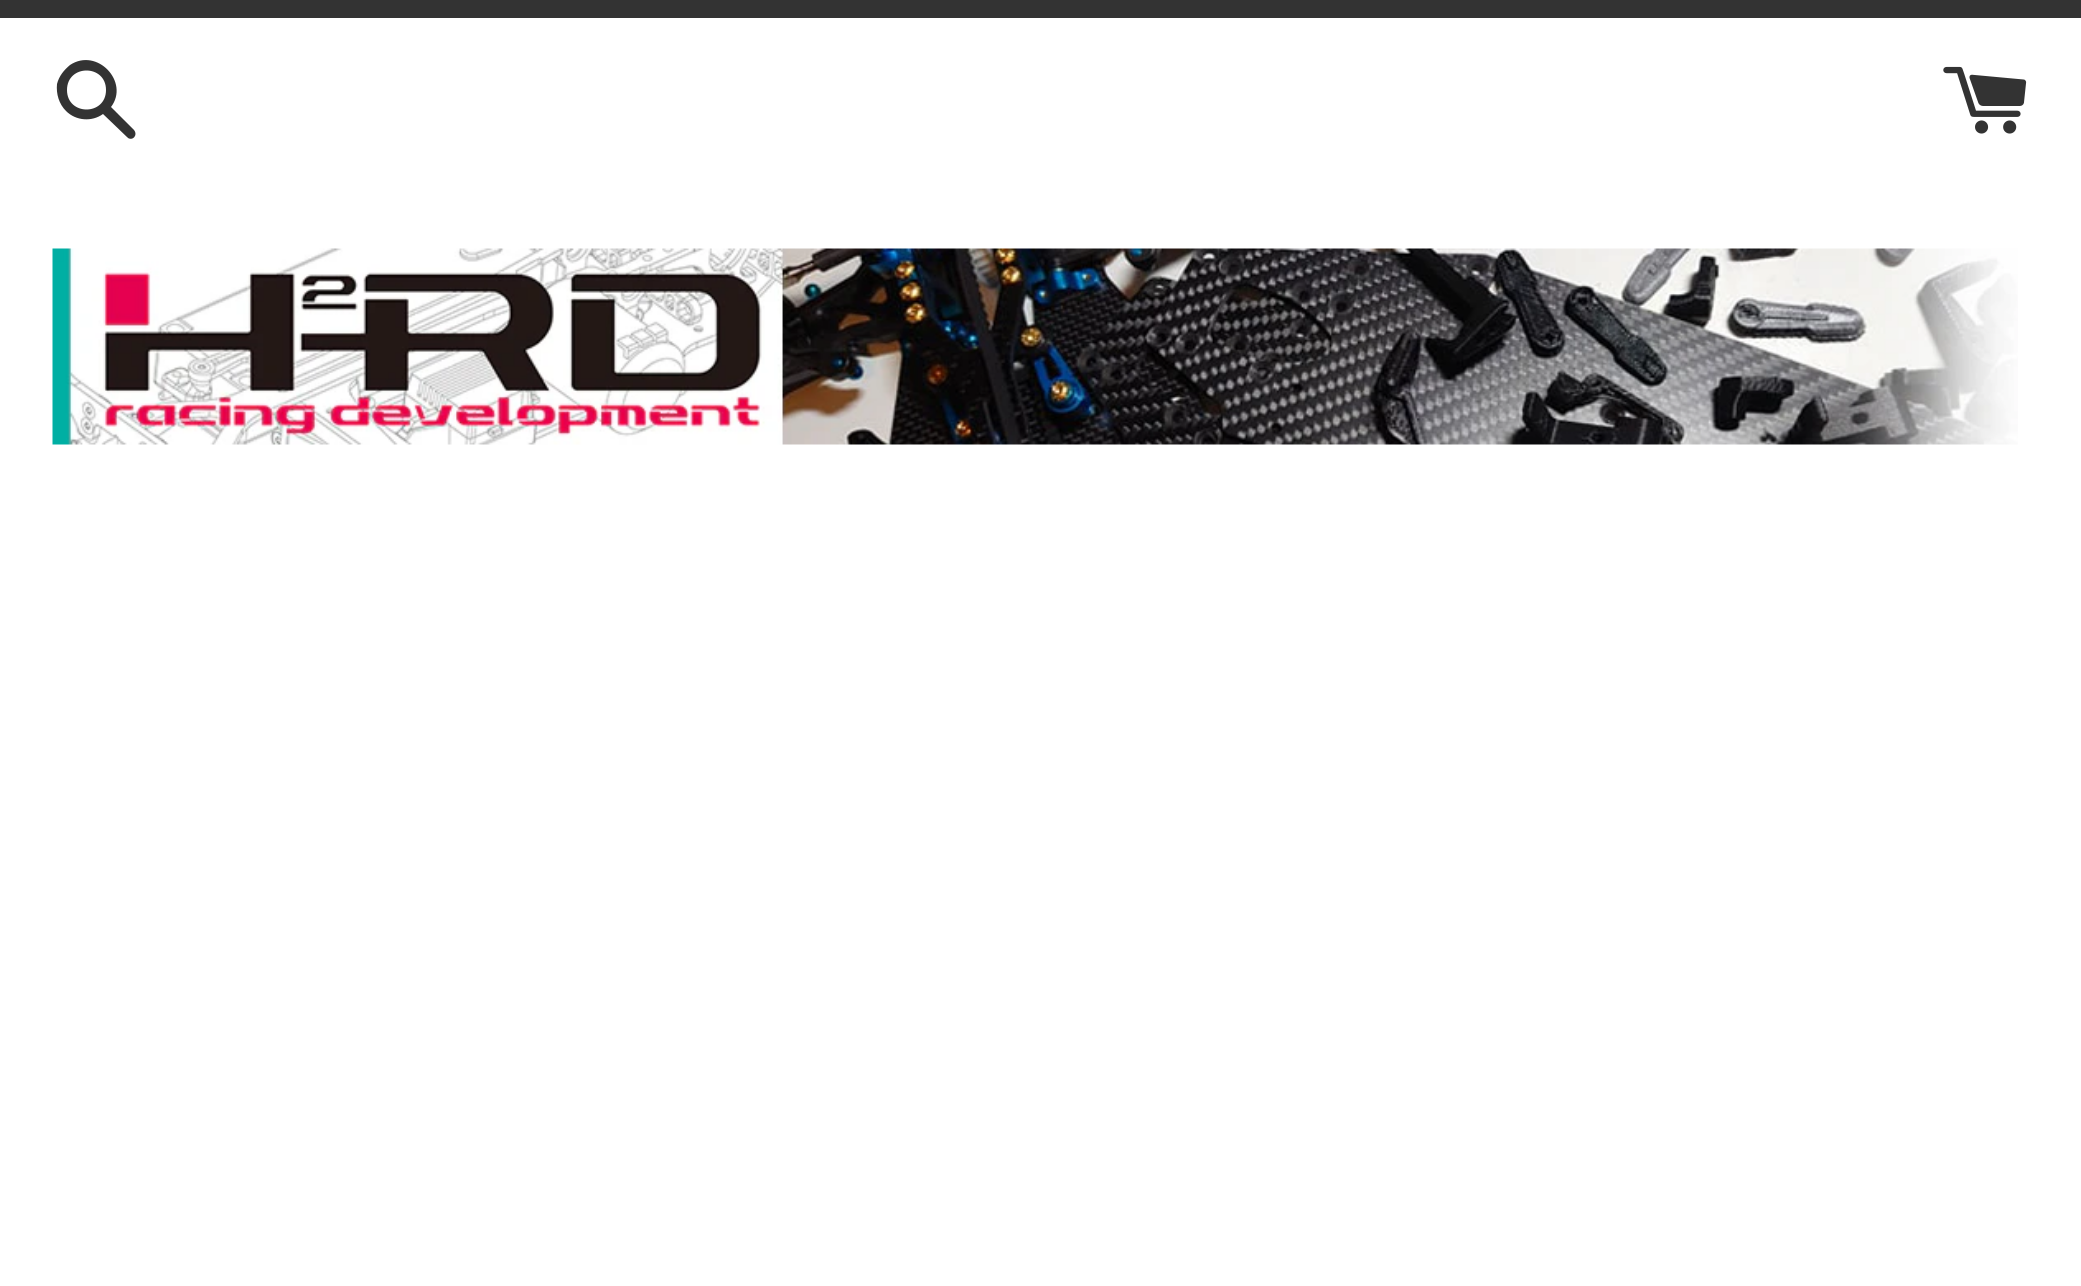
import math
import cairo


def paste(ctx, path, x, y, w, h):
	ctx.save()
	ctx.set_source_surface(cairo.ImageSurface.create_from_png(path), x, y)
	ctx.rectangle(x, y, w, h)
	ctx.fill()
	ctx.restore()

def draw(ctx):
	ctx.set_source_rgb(1, 1, 1)
	ctx.paint()
	ctx.set_source_rgb(0.2, 0.2, 0.2)
	ctx.rectangle(0, 0, 2081, 18)
	ctx.fill()
	ctx.new_path()
	ctx.move_to(134, 130)
	ctx.line_to(111, 107)
	ctx.curve_to(130, 82, 97, 47, 70, 65)
	ctx.curve_to(64, 70, 59, 76, 57, 84)
	ctx.curve_to(56, 94, 59, 104, 66, 111)
	ctx.curve_to(76, 121, 92, 122, 103, 114)
	ctx.line_to(128, 138)
	ctx.curve_to(133, 141, 138, 135, 134, 130)
	ctx.close_path()
	ctx.move_to(67, 90)
	ctx.curve_to(67, 64, 106, 64, 106, 90)
	ctx.curve_to(106, 116, 67, 116, 67, 90)
	ctx.close_path()
	ctx.fill()
	paste(ctx, 'media/1.png', 1943, 66, 84, 68)
	paste(ctx, 'media/2.png', 52, 248, 1966, 197)


surface = cairo.ImageSurface(cairo.FORMAT_RGB24, 2081, 1286)
ctx = cairo.Context(surface)
options = cairo.FontOptions()
options.set_hint_metrics(cairo.HINT_METRICS_OFF)
options.set_hint_style(cairo.HINT_STYLE_NONE)
ctx.set_font_options(options)
ctx.set_miter_limit(4)
draw(ctx)
surface.write_to_png('image.png')
